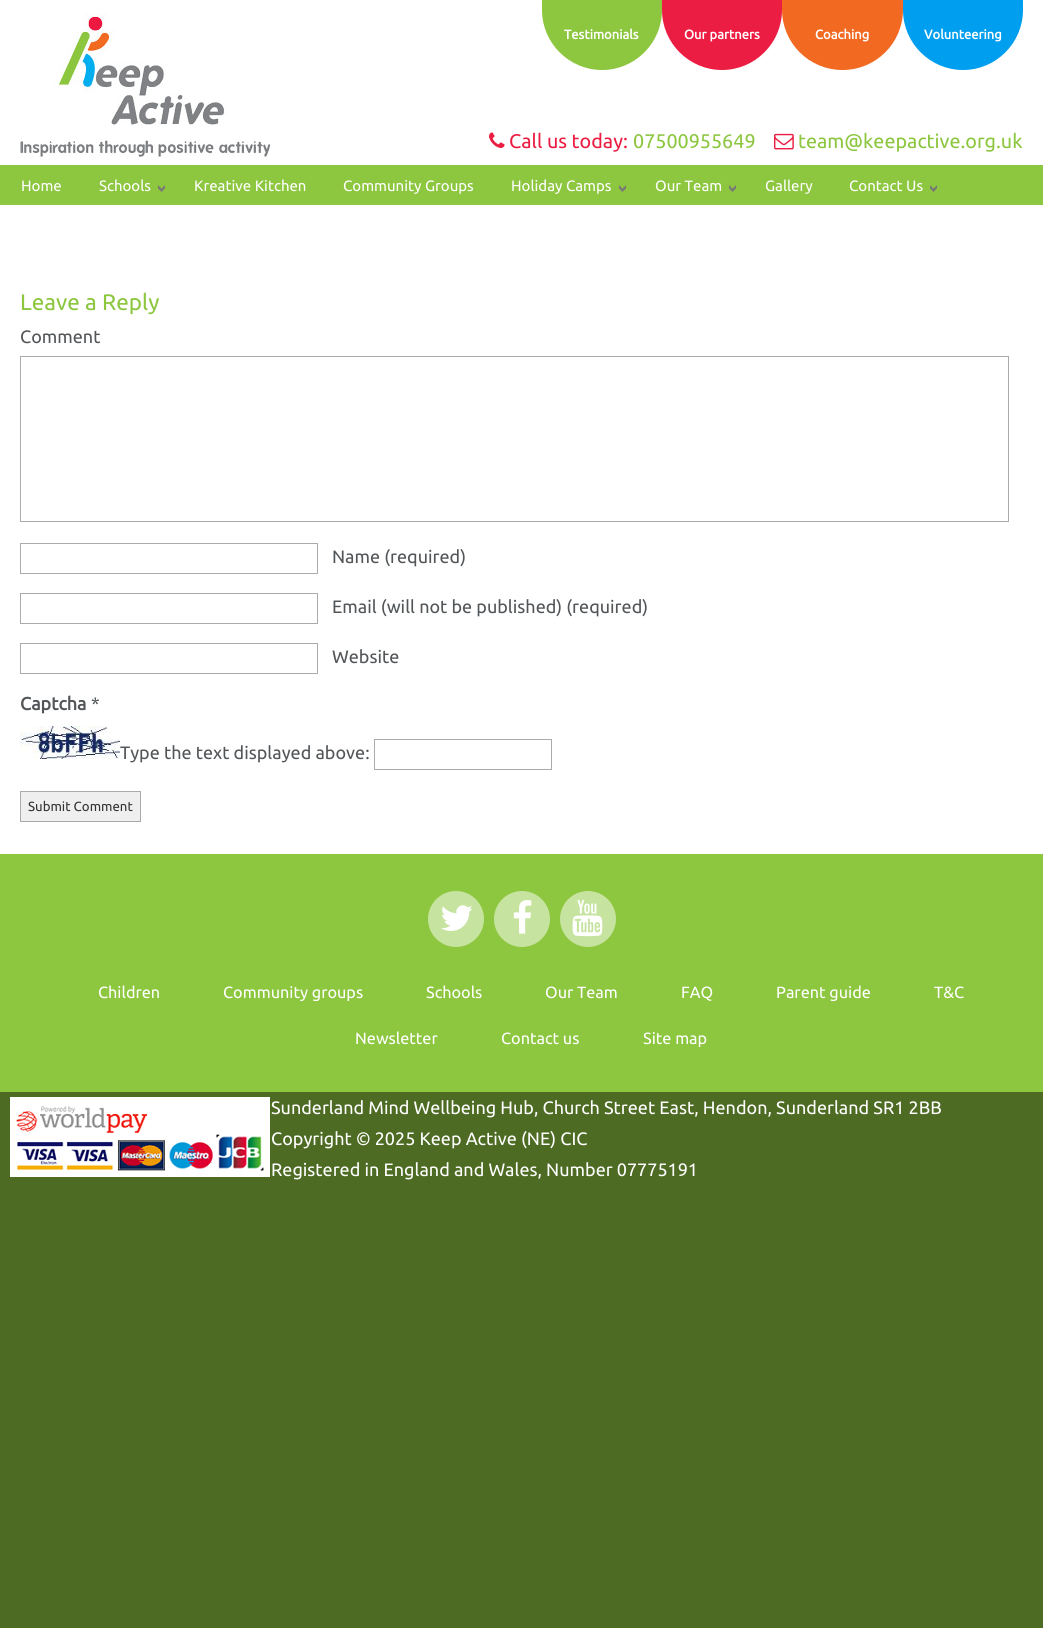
import math
import cairo


def paste(ctx, path, x, y, w, h):
	ctx.save()
	ctx.set_source_surface(cairo.ImageSurface.create_from_png(path), x, y)
	ctx.rectangle(x, y, w, h)
	ctx.fill()
	ctx.restore()

def draw(ctx):
	ctx.set_source_rgb(0.302, 0.42, 0.137)
	ctx.paint()
	ctx.set_source_rgb(1, 1, 1)
	ctx.rectangle(0, 0, 1043, 854)
	ctx.fill()
	ctx.set_source_rgb(0.553, 0.776, 0.247)
	ctx.new_path()
	ctx.move_to(542, 0)
	ctx.line_to(662, 0)
	ctx.line_to(662, 10)
	ctx.curve_to(662, 43, 635, 70, 602, 70)
	ctx.curve_to(569, 70, 542, 43, 542, 10)
	ctx.close_path()
	ctx.fill()
	ctx.select_font_face('Ubuntu', cairo.FONT_SLANT_NORMAL, cairo.FONT_WEIGHT_BOLD)
	ctx.set_font_size(13)
	ctx.set_source_rgb(1, 1, 1)
	ctx.move_to(564, 39)
	ctx.show_text('Testimonials')
	ctx.set_source_rgb(0.925, 0.114, 0.259)
	ctx.new_path()
	ctx.move_to(662, 0)
	ctx.line_to(782, 0)
	ctx.line_to(782, 10)
	ctx.curve_to(782, 43, 755, 70, 722, 70)
	ctx.curve_to(689, 70, 662, 43, 662, 10)
	ctx.close_path()
	ctx.fill()
	ctx.set_source_rgb(1, 1, 1)
	ctx.move_to(684, 39)
	ctx.show_text('Our partners')
	ctx.set_source_rgb(0.949, 0.412, 0.133)
	ctx.new_path()
	ctx.move_to(782, 0)
	ctx.line_to(903, 0)
	ctx.line_to(903, 9.5)
	ctx.curve_to(903, 43, 876, 70, 842.5, 70)
	ctx.curve_to(809, 70, 782, 43, 782, 9.5)
	ctx.close_path()
	ctx.fill()
	ctx.set_source_rgb(1, 1, 1)
	ctx.move_to(815, 39)
	ctx.show_text('Coaching')
	ctx.set_source_rgb(0, 0.62, 0.937)
	ctx.new_path()
	ctx.move_to(903, 0)
	ctx.line_to(1023, 0)
	ctx.line_to(1023, 10)
	ctx.curve_to(1023, 43, 996, 70, 963, 70)
	ctx.curve_to(930, 70, 903, 43, 903, 10)
	ctx.close_path()
	ctx.fill()
	ctx.set_source_rgb(1, 1, 1)
	ctx.move_to(924, 39)
	ctx.show_text('Volunteering')
	paste(ctx, 'media/1.png', 20, 13, 250, 144)
	paste(ctx, 'media/2.png', 489, 132, 16, 16)
	ctx.select_font_face('Ubuntu')
	ctx.set_font_size(19.75)
	ctx.set_source_rgb(0.925, 0.114, 0.259)
	ctx.move_to(509, 148)
	ctx.show_text('Call us today:')
	ctx.set_source_rgb(0.553, 0.776, 0.247)
	ctx.move_to(633, 148)
	ctx.show_text('07500955649')
	paste(ctx, 'media/3.png', 774, 133, 20, 17)
	ctx.move_to(798, 148)
	ctx.show_text('team@keepactive.org.uk')
	ctx.rectangle(0, 165, 1043, 40)
	ctx.fill()
	ctx.set_font_size(15)
	ctx.set_source_rgb(1, 1, 1)
	ctx.move_to(21, 191)
	ctx.show_text('Home')
	ctx.move_to(99, 191)
	ctx.show_text('Schools')
	paste(ctx, 'media/4.png', 158, 185, 7, 7)
	for x, y, s in [
		(194, 191, 'Kreative Kitchen'),
		(343, 191, 'Community Groups'),
		(511, 191, 'Holiday Camps'),
	]:
		ctx.move_to(x, y)
		ctx.show_text(s)
	paste(ctx, 'media/4.png', 619, 185, 7, 7)
	ctx.move_to(655, 191)
	ctx.show_text('Our Team')
	paste(ctx, 'media/4.png', 729, 185, 7, 7)
	ctx.move_to(765, 191)
	ctx.show_text('Gallery')
	ctx.move_to(849, 191)
	ctx.show_text('Contact Us')
	paste(ctx, 'media/4.png', 930, 185, 7, 7)
	ctx.set_font_size(22.5)
	ctx.set_source_rgb(0.553, 0.776, 0.247)
	ctx.move_to(20, 310)
	ctx.show_text('Leave a Reply')
	ctx.set_font_size(18)
	ctx.set_source_rgb(0.322, 0.337, 0.349)
	ctx.move_to(20, 343)
	ctx.show_text('Comment')
	ctx.rectangle(20.5, 356.5, 988, 165)
	ctx.set_source_rgb(0.671, 0.671, 0.671)
	ctx.set_line_width(1)
	ctx.stroke()
	ctx.rectangle(20.5, 543.5, 297, 30)
	ctx.stroke()
	ctx.set_source_rgb(0.322, 0.337, 0.349)
	ctx.move_to(332, 563)
	ctx.show_text('Name (required)')
	ctx.rectangle(20.5, 593.5, 297, 30)
	ctx.set_source_rgb(0.671, 0.671, 0.671)
	ctx.stroke()
	ctx.set_source_rgb(0.322, 0.337, 0.349)
	ctx.move_to(332, 613)
	ctx.show_text('Email (will not be published) (required)')
	ctx.rectangle(20.5, 643.5, 297, 30)
	ctx.set_source_rgb(0.671, 0.671, 0.671)
	ctx.stroke()
	ctx.set_source_rgb(0.322, 0.337, 0.349)
	ctx.move_to(332, 663)
	ctx.show_text('Website')
	ctx.select_font_face('Ubuntu', cairo.FONT_SLANT_NORMAL, cairo.FONT_WEIGHT_BOLD)
	ctx.move_to(20, 710)
	ctx.show_text('Captcha')
	ctx.select_font_face('Ubuntu')
	ctx.move_to(91, 710)
	ctx.show_text('*')
	paste(ctx, 'media/5.png', 20, 726, 100, 33)
	ctx.move_to(120, 759)
	ctx.show_text('Type the text displayed above:')
	ctx.rectangle(374.5, 739.5, 177, 30)
	ctx.set_source_rgb(0.671, 0.671, 0.671)
	ctx.stroke()
	ctx.set_source_rgb(0.937, 0.937, 0.937)
	ctx.rectangle(20.5, 791.5, 120, 30)
	ctx.fill_preserve()
	ctx.set_source_rgb(0.671, 0.671, 0.671)
	ctx.stroke()
	ctx.set_font_size(13.25)
	ctx.set_source_rgb(0.2, 0.2, 0.2)
	ctx.move_to(28, 811)
	ctx.show_text('Submit Comment')
	ctx.set_source_rgb(0.553, 0.776, 0.247)
	ctx.rectangle(0, 854, 1043, 238)
	ctx.fill()
	ctx.set_source_rgb(0.776, 0.89, 0.624)
	ctx.arc(456, 919, 28, 0, 2 * math.pi)
	ctx.fill()
	paste(ctx, 'media/6.png', 441, 905, 32, 26)
	ctx.arc(522, 919, 28, 0, 2 * math.pi)
	ctx.fill()
	paste(ctx, 'media/7.png', 513, 900, 19, 34)
	ctx.arc(588, 919, 28, 0, 2 * math.pi)
	ctx.fill()
	paste(ctx, 'media/8.png', 572, 900, 31, 37)
	ctx.set_font_size(16.25)
	ctx.set_source_rgb(1, 1, 1)
	for x, y, s in [
		(98, 998, 'Children'),
		(223, 998, 'Community groups'),
		(426, 998, 'Schools'),
		(545, 998, 'Our Team'),
		(681, 998, 'FAQ'),
		(776, 998, 'Parent guide'),
		(934, 998, 'T&C'),
		(355, 1044, 'Newsletter'),
		(501, 1044, 'Contact us'),
		(643, 1044, 'Site map'),
	]:
		ctx.move_to(x, y)
		ctx.show_text(s)
	paste(ctx, 'media/9.png', 10, 1097, 260, 80)
	ctx.set_font_size(18)
	for x, y, s in [
		(271, 1114, 'Sunderland Mind Wellbeing Hub, Church Street East, Hendon, Sunderland SR1 2BB'),
		(271, 1145, 'Copyright © 2025 Keep Active (NE) CIC'),
		(271, 1176, 'Registered in England and Wales, Number 07775191'),
	]:
		ctx.move_to(x, y)
		ctx.show_text(s)


surface = cairo.ImageSurface(cairo.FORMAT_RGB24, 1043, 1628)
ctx = cairo.Context(surface)
options = cairo.FontOptions()
options.set_hint_metrics(cairo.HINT_METRICS_OFF)
options.set_hint_style(cairo.HINT_STYLE_NONE)
ctx.set_font_options(options)
ctx.set_miter_limit(4)
draw(ctx)
surface.write_to_png('image.png')
